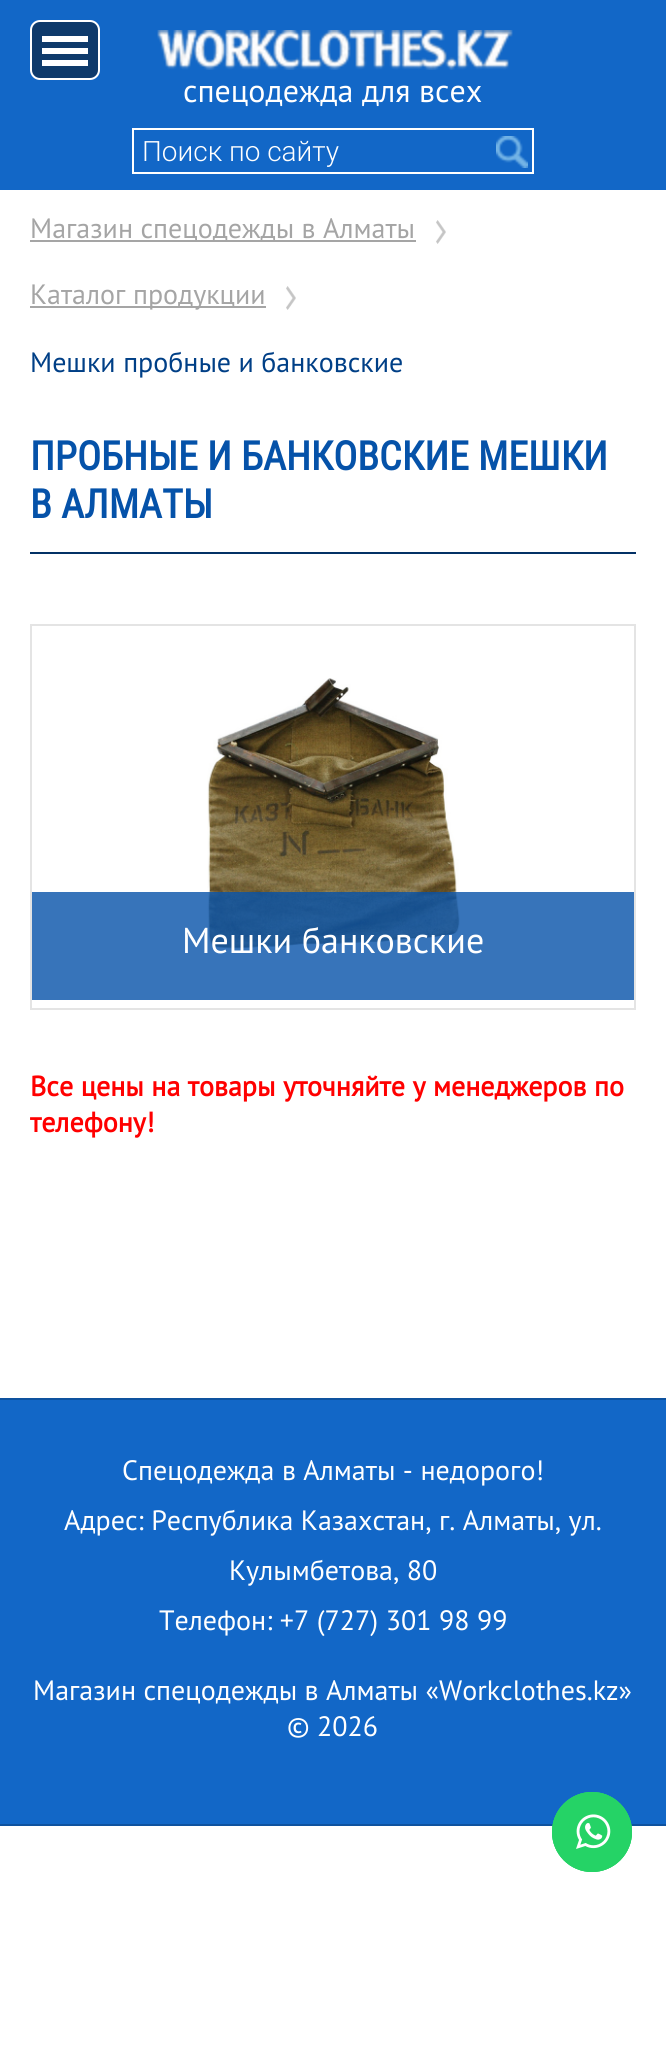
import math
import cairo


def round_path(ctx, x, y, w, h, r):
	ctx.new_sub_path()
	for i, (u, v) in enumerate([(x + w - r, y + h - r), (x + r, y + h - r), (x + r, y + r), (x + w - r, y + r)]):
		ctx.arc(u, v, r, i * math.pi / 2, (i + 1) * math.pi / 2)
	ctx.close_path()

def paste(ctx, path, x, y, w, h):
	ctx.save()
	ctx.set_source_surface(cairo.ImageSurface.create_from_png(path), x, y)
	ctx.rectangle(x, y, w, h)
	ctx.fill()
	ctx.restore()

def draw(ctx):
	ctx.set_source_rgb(1, 1, 1)
	ctx.paint()
	ctx.set_source_rgb(0.071, 0.404, 0.78)
	ctx.rectangle(0, 0, 666, 190)
	ctx.fill()
	ctx.set_source_rgb(0.055, 0.227, 0.42)
	round_path(ctx, 31, 21, 68, 58, 9)
	ctx.fill_preserve()
	ctx.set_source_rgb(1, 1, 1)
	ctx.stroke()
	ctx.rectangle(42, 36, 46, 6)
	ctx.rectangle(42, 48, 46, 6)
	ctx.rectangle(42, 60, 46, 6)
	ctx.fill()
	paste(ctx, 'media/1.png', 157, 30, 356, 40)
	ctx.select_font_face('PT Sans')
	ctx.set_font_size(32)
	ctx.move_to(183, 102)
	ctx.show_text('спецодежда для всех')
	paste(ctx, 'media/2.png', 496, 136, 32, 32)
	ctx.rectangle(132, 128, 402, 2)
	ctx.rectangle(532, 128, 2, 46)
	ctx.rectangle(132, 172, 402, 2)
	ctx.rectangle(132, 128, 2, 46)
	ctx.fill()
	ctx.select_font_face('Roboto Light')
	ctx.set_font_size(28)
	ctx.move_to(142, 161)
	ctx.show_text('Поиск по сайту')
	ctx.set_source_rgb(0.647, 0.647, 0.647)
	ctx.rectangle(30, 240, 386, 2)
	ctx.fill()
	ctx.select_font_face('PT Sans')
	ctx.move_to(30, 238)
	ctx.show_text('Магазин спецодежды в Алматы')
	paste(ctx, 'media/3.png', 436, 220, 10, 24)
	ctx.rectangle(30, 306, 236, 2)
	ctx.fill()
	ctx.move_to(30, 304)
	ctx.show_text('Каталог продукции')
	paste(ctx, 'media/4.png', 286, 286, 10, 24)
	ctx.set_source_rgb(0, 0.247, 0.525)
	ctx.move_to(30, 372)
	ctx.show_text('Мешки пробные и банковские')
	ctx.set_source_rgb(0.012, 0.192, 0.396)
	ctx.rectangle(30, 552, 606, 2)
	ctx.fill()
	ctx.select_font_face('Roboto Condensed', cairo.FONT_SLANT_NORMAL, cairo.FONT_WEIGHT_BOLD)
	ctx.set_font_size(40)
	ctx.set_source_rgb(0.02, 0.322, 0.663)
	ctx.move_to(30, 470)
	ctx.show_text('ПРОБНЫЕ И БАНКОВСКИЕ МЕШКИ')
	ctx.move_to(30, 518)
	ctx.show_text('В АЛМАТЫ')
	ctx.rectangle(31, 625, 604, 384)
	ctx.set_source_rgb(0.894, 0.894, 0.894)
	ctx.stroke()
	paste(ctx, 'media/5.png', 207, 678, 253, 271)
	ctx.set_source_rgba(0.02, 0.322, 0.663, 0.8)
	ctx.rectangle(32, 892, 602, 108)
	ctx.fill()
	ctx.select_font_face('PT Sans')
	ctx.set_font_size(36)
	ctx.set_source_rgb(1, 1, 1)
	ctx.move_to(182, 953)
	ctx.show_text('Мешки банковские')
	ctx.select_font_face('PT Sans', cairo.FONT_SLANT_NORMAL, cairo.FONT_WEIGHT_BOLD)
	ctx.set_font_size(28)
	ctx.set_source_rgb(1, 0, 0)
	ctx.move_to(30, 1096)
	ctx.show_text('Все цены на товары уточняйте у менеджеров по')
	ctx.move_to(30, 1132)
	ctx.show_text('телефону!')
	ctx.set_source_rgb(0.071, 0.404, 0.78)
	ctx.rectangle(0, 1400, 666, 424)
	ctx.fill()
	ctx.set_source_rgb(0.055, 0.322, 0.624)
	ctx.rectangle(0, 1398, 666, 2)
	ctx.rectangle(0, 1824, 666, 2)
	ctx.fill()
	ctx.select_font_face('PT Sans')
	ctx.set_source_rgb(1, 1, 1)
	for x, y, s in [
		(122, 1480, 'Спецодежда в Алматы - недорого!'),
		(64, 1530, 'Адрес: Республика Казахстан, г. Алматы, ул.'),
		(229, 1580, 'Кулымбетова, 80'),
		(159, 1630, 'Телефон: +7 (727) 301 98 99'),
		(33, 1700, 'Магазин спецодежды в Алматы «Workclothes.kz»'),
		(287, 1736, '© 2026'),
	]:
		ctx.move_to(x, y)
		ctx.show_text(s)
	ctx.set_source_rgb(0.145, 0.827, 0.4)
	ctx.new_path()
	ctx.arc(592, 1832, 40, 0, 2 * math.pi)
	ctx.fill()
	paste(ctx, 'media/6.png', 576, 1814, 35, 35)
	ctx.arc(592, 1832, 35, 0, 2 * math.pi)
	ctx.set_line_width(10)
	ctx.stroke()
	ctx.arc(592, 1832, 35, 0, 2 * math.pi)
	ctx.stroke()


surface = cairo.ImageSurface(cairo.FORMAT_RGB24, 666, 2071)
ctx = cairo.Context(surface)
options = cairo.FontOptions()
options.set_hint_metrics(cairo.HINT_METRICS_OFF)
options.set_hint_style(cairo.HINT_STYLE_NONE)
ctx.set_font_options(options)
ctx.set_miter_limit(4)
draw(ctx)
surface.write_to_png('image.png')
